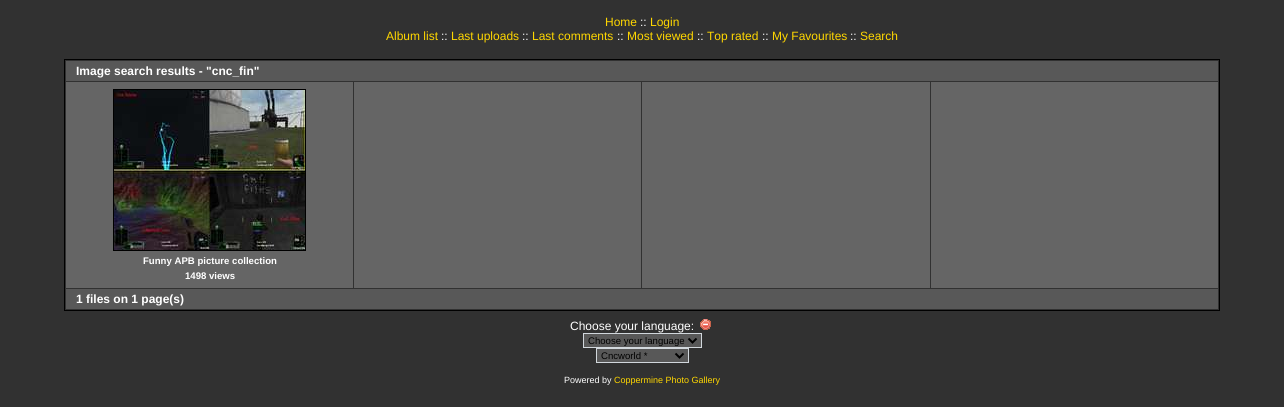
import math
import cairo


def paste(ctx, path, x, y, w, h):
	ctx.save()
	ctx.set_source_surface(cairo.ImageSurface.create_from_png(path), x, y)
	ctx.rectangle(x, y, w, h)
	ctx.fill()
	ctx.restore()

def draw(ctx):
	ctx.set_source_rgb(0.192, 0.192, 0.192)
	ctx.paint()
	ctx.select_font_face('Liberation Sans')
	ctx.set_font_size(12)
	ctx.set_source_rgb(1, 0.843, 0)
	ctx.move_to(605, 26)
	ctx.show_text('Home')
	ctx.set_source_rgb(1, 1, 1)
	ctx.move_to(640, 26)
	ctx.show_text('::')
	ctx.set_source_rgb(1, 0.843, 0)
	ctx.move_to(650, 26)
	ctx.show_text('Login')
	ctx.move_to(386, 40)
	ctx.show_text('Album list')
	ctx.set_source_rgb(1, 1, 1)
	ctx.move_to(441, 40)
	ctx.show_text('::')
	ctx.set_source_rgb(1, 0.843, 0)
	ctx.move_to(451, 40)
	ctx.show_text('Last uploads')
	ctx.set_source_rgb(1, 1, 1)
	ctx.move_to(522, 40)
	ctx.show_text('::')
	ctx.set_source_rgb(1, 0.843, 0)
	ctx.move_to(532, 40)
	ctx.show_text('Last comments')
	ctx.set_source_rgb(1, 1, 1)
	ctx.move_to(617, 40)
	ctx.show_text('::')
	ctx.set_source_rgb(1, 0.843, 0)
	ctx.move_to(627, 40)
	ctx.show_text('Most viewed')
	ctx.set_source_rgb(1, 1, 1)
	ctx.move_to(697, 40)
	ctx.show_text('::')
	ctx.set_source_rgb(1, 0.843, 0)
	ctx.move_to(707, 40)
	ctx.show_text('Top rated')
	ctx.set_source_rgb(1, 1, 1)
	ctx.move_to(762, 40)
	ctx.show_text('::')
	ctx.set_source_rgb(1, 0.843, 0)
	ctx.move_to(772, 40)
	ctx.show_text('My Favourites')
	ctx.set_source_rgb(1, 1, 1)
	ctx.move_to(850, 40)
	ctx.show_text('::')
	ctx.set_source_rgb(1, 0.843, 0)
	ctx.move_to(860, 40)
	ctx.show_text('Search')
	ctx.rectangle(64.5, 59.5, 1155, 251)
	ctx.set_source_rgb(0, 0, 0)
	ctx.set_line_width(1)
	ctx.stroke()
	ctx.set_source_rgb(0.345, 0.345, 0.345)
	ctx.rectangle(66, 61, 1152, 20)
	ctx.fill()
	ctx.select_font_face('Liberation Sans', cairo.FONT_SLANT_NORMAL, cairo.FONT_WEIGHT_BOLD)
	ctx.set_source_rgb(1, 1, 1)
	ctx.move_to(76, 75)
	ctx.show_text('Image search results - "cnc_fin"')
	ctx.set_source_rgb(0.396, 0.396, 0.396)
	ctx.rectangle(66, 82, 287, 206)
	ctx.fill()
	ctx.rectangle(113.5, 89.5, 192, 161)
	ctx.set_source_rgb(0, 0, 0)
	ctx.stroke()
	paste(ctx, 'media/1.png', 114, 90, 191, 160)
	ctx.set_font_size(9.6)
	ctx.set_source_rgb(1, 1, 1)
	ctx.move_to(143, 264)
	ctx.show_text('Funny APB picture collection')
	ctx.move_to(185, 279)
	ctx.show_text('1498 views')
	ctx.set_source_rgb(0.396, 0.396, 0.396)
	ctx.rectangle(354, 82, 287, 206)
	ctx.rectangle(642, 82, 288, 206)
	ctx.rectangle(931, 82, 287, 206)
	ctx.fill()
	ctx.set_source_rgb(0.345, 0.345, 0.345)
	ctx.rectangle(66, 289, 1152, 20)
	ctx.fill()
	ctx.set_font_size(12)
	ctx.set_source_rgb(1, 1, 1)
	ctx.move_to(76, 303)
	ctx.show_text('1 files on 1 page(s)')
	ctx.select_font_face('Liberation Sans')
	ctx.move_to(570, 330)
	ctx.show_text('Choose your language:')
	paste(ctx, 'media/2.png', 700, 319, 11, 11)
	ctx.set_source_rgb(0.345, 0.345, 0.345)
	ctx.rectangle(583.5, 333.5, 118, 14)
	ctx.fill_preserve()
	ctx.set_source_rgb(0.82, 0.843, 0.863)
	ctx.stroke()
	ctx.new_path()
	ctx.move_to(688.5, 338.5)
	ctx.line_to(692.5, 342.5)
	ctx.line_to(696.5, 338.5)
	ctx.set_source_rgb(0, 0, 0)
	ctx.set_line_width(2)
	ctx.stroke()
	ctx.set_font_size(9.6)
	ctx.move_to(588, 344)
	ctx.show_text('Choose your language')
	ctx.set_source_rgb(0.345, 0.345, 0.345)
	ctx.rectangle(596.5, 348.5, 92, 14)
	ctx.fill_preserve()
	ctx.set_source_rgb(0.82, 0.843, 0.863)
	ctx.set_line_width(1)
	ctx.stroke()
	ctx.new_path()
	ctx.move_to(675.5, 353.5)
	ctx.line_to(679.5, 357.5)
	ctx.line_to(683.5, 353.5)
	ctx.set_source_rgb(0, 0, 0)
	ctx.set_line_width(2)
	ctx.stroke()
	ctx.move_to(601, 359)
	ctx.show_text('Cncworld *')
	ctx.set_font_size(9)
	ctx.set_source_rgb(1, 1, 1)
	ctx.move_to(564, 383)
	ctx.show_text('Powered by')
	ctx.set_source_rgb(1, 0.843, 0)
	ctx.move_to(614, 383)
	ctx.show_text('Coppermine Photo Gallery')


surface = cairo.ImageSurface(cairo.FORMAT_RGB24, 1284, 407)
ctx = cairo.Context(surface)
options = cairo.FontOptions()
options.set_hint_metrics(cairo.HINT_METRICS_OFF)
options.set_hint_style(cairo.HINT_STYLE_NONE)
ctx.set_font_options(options)
ctx.set_miter_limit(4)
draw(ctx)
surface.write_to_png('image.png')
